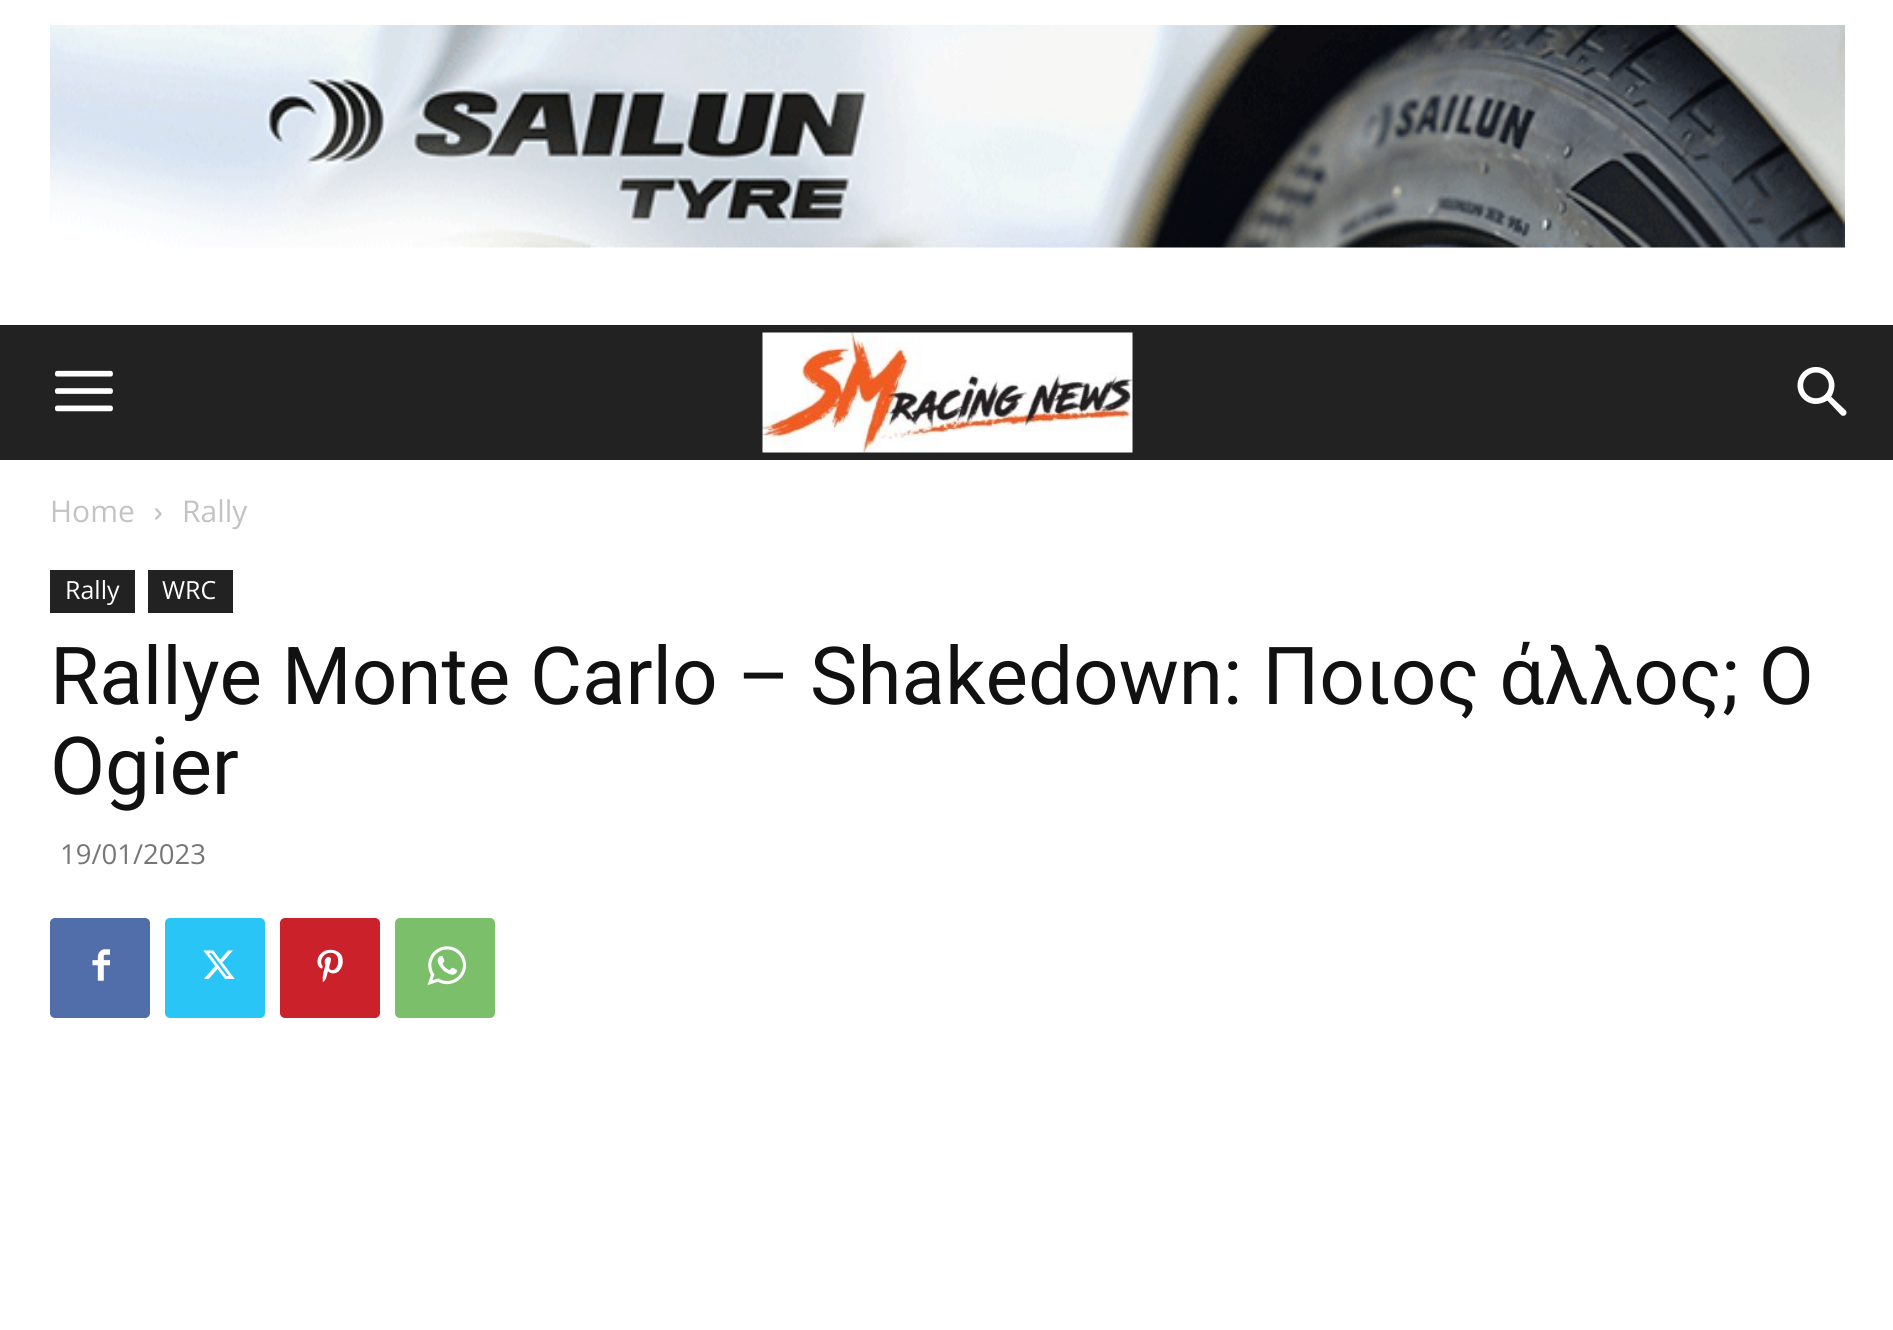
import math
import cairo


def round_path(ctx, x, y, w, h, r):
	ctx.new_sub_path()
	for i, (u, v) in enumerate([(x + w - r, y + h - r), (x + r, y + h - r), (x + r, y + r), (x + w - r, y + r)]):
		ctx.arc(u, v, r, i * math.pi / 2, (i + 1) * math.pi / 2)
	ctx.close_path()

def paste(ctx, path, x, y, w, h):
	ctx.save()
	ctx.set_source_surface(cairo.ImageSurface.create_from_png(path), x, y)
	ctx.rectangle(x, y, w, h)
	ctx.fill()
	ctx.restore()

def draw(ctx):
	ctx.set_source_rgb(1, 1, 1)
	ctx.paint()
	paste(ctx, 'media/1.png', 50, 25, 1795, 223)
	ctx.set_source_rgb(0.133, 0.133, 0.133)
	ctx.rectangle(0, 325, 1893, 135)
	ctx.fill()
	paste(ctx, 'media/2.png', 55, 370, 58, 42)
	paste(ctx, 'media/3.png', 762, 332, 371, 121)
	paste(ctx, 'media/4.png', 1797, 367, 50, 49)
	ctx.select_font_face('Open Sans')
	ctx.set_font_size(30)
	ctx.set_source_rgb(0.765, 0.765, 0.765)
	ctx.move_to(50, 522)
	ctx.show_text('Home')
	paste(ctx, 'media/5.png', 155, 508, 7, 12)
	ctx.move_to(182, 522)
	ctx.show_text('Rally')
	ctx.set_source_rgb(0.133, 0.133, 0.133)
	ctx.rectangle(50, 570, 85, 43)
	ctx.fill()
	ctx.set_font_size(25)
	ctx.set_source_rgb(1, 1, 1)
	ctx.move_to(65, 599)
	ctx.show_text('Rally')
	ctx.set_source_rgb(0.133, 0.133, 0.133)
	ctx.rectangle(148, 570, 85, 43)
	ctx.fill()
	ctx.set_source_rgb(1, 1, 1)
	ctx.move_to(162, 599)
	ctx.show_text('WRC')
	ctx.select_font_face('Roboto')
	ctx.set_font_size(80)
	ctx.set_source_rgb(0.067, 0.067, 0.067)
	ctx.move_to(50, 704)
	ctx.show_text('Rallye Monte Carlo – Shakedown: Ποιος άλλος; Ο')
	ctx.move_to(50, 794)
	ctx.show_text('Ogier')
	ctx.select_font_face('Open Sans')
	ctx.set_font_size(27.5)
	ctx.set_source_rgb(0.463, 0.463, 0.463)
	ctx.move_to(60, 864)
	ctx.show_text('19/01/2023')
	ctx.set_source_rgb(0.318, 0.431, 0.671)
	round_path(ctx, 50, 918, 100, 100, 5)
	ctx.fill()
	paste(ctx, 'media/6.png', 92, 949, 18, 32)
	ctx.set_source_rgb(0.161, 0.773, 0.965)
	round_path(ctx, 165, 918, 100, 100, 5)
	ctx.fill()
	paste(ctx, 'media/7.png', 203, 950, 32, 29)
	ctx.set_source_rgb(0.792, 0.129, 0.165)
	round_path(ctx, 280, 918, 100, 100, 5)
	ctx.fill()
	paste(ctx, 'media/8.png', 317, 949, 26, 34)
	ctx.set_source_rgb(0.482, 0.749, 0.416)
	round_path(ctx, 395, 918, 100, 100, 5)
	ctx.fill()
	paste(ctx, 'media/9.png', 427, 946, 40, 39)


surface = cairo.ImageSurface(cairo.FORMAT_RGB24, 1893, 1330)
ctx = cairo.Context(surface)
options = cairo.FontOptions()
options.set_hint_metrics(cairo.HINT_METRICS_OFF)
options.set_hint_style(cairo.HINT_STYLE_NONE)
ctx.set_font_options(options)
ctx.set_miter_limit(4)
draw(ctx)
surface.write_to_png('image.png')
